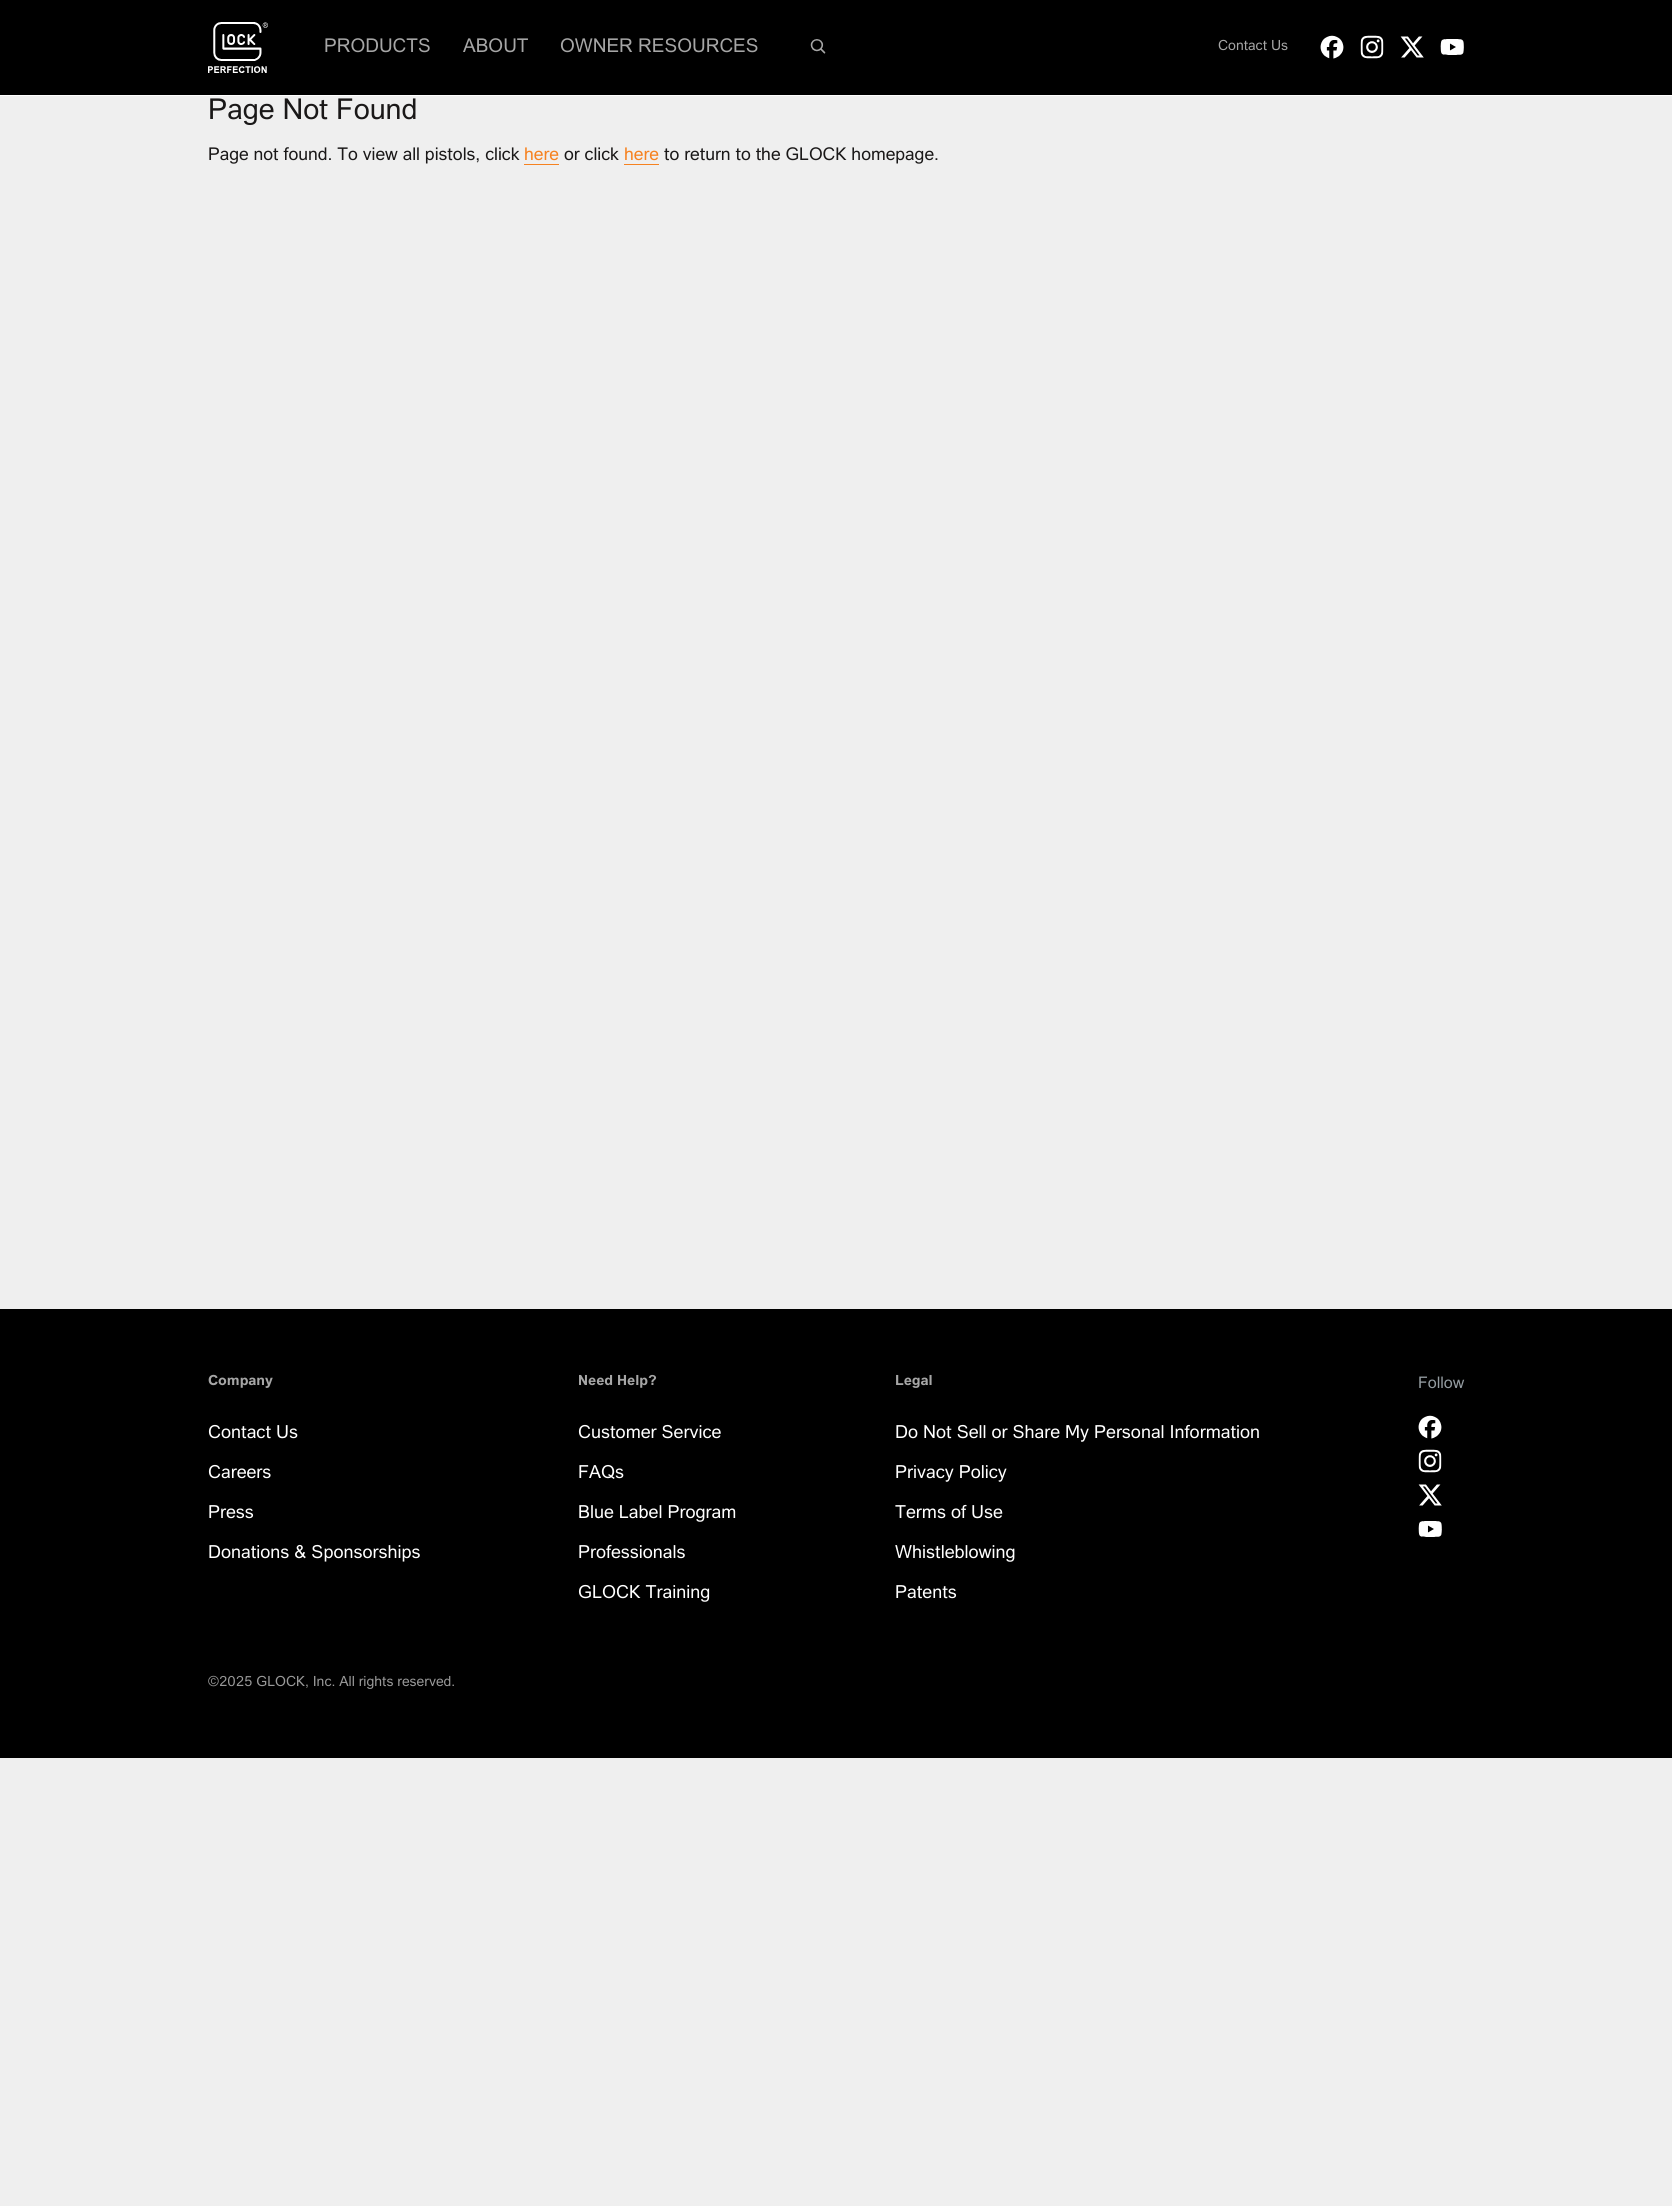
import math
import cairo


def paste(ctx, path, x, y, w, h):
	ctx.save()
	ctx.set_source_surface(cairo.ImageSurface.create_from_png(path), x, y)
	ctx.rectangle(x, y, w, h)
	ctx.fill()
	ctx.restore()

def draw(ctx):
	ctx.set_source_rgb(0.937, 0.937, 0.937)
	ctx.paint()
	ctx.set_source_rgb(0, 0, 0)
	ctx.rectangle(0, 0, 1672, 95)
	ctx.fill()
	ctx.set_source_rgb(1, 1, 1)
	ctx.rectangle(0, 95, 1672, 1)
	ctx.fill()
	paste(ctx, 'media/1.png', 208, 22, 60, 51)
	ctx.select_font_face('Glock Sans')
	ctx.set_font_size(19)
	ctx.set_source_rgb(0.651, 0.651, 0.651)
	for x, y, s in [
		(324, 52, 'PRODUCTS'),
		(463, 52, 'ABOUT'),
		(560, 52, 'OWNER RESOURCES'),
	]:
		ctx.move_to(x, y)
		ctx.show_text(s)
	paste(ctx, 'media/2.png', 810, 39, 16, 15)
	ctx.set_font_size(14)
	ctx.move_to(1218, 50)
	ctx.show_text('Contact Us')
	paste(ctx, 'media/3.png', 1320, 35, 24, 24)
	paste(ctx, 'media/4.png', 1360, 35, 24, 24)
	paste(ctx, 'media/5.png', 1400, 36, 24, 22)
	paste(ctx, 'media/6.png', 1440, 39, 24, 16)
	ctx.set_font_size(28.75)
	ctx.set_source_rgb(0.102, 0.094, 0.094)
	ctx.move_to(208, 119)
	ctx.show_text('Page Not Found')
	ctx.set_font_size(17.6)
	ctx.move_to(208, 160)
	ctx.show_text('Page not found. To view all pistols, click')
	ctx.set_source_rgb(0.961, 0.51, 0.125)
	ctx.move_to(524, 160)
	ctx.show_text('here')
	ctx.rectangle(524, 164, 35, 1)
	ctx.fill()
	ctx.set_source_rgb(0.102, 0.094, 0.094)
	ctx.move_to(564, 160)
	ctx.show_text('or click')
	ctx.set_source_rgb(0.961, 0.51, 0.125)
	ctx.move_to(624, 160)
	ctx.show_text('here')
	ctx.rectangle(624, 164, 35, 1)
	ctx.fill()
	ctx.set_source_rgb(0.102, 0.094, 0.094)
	ctx.move_to(664, 160)
	ctx.show_text('to return to the GLOCK homepage.')
	ctx.set_source_rgb(0, 0, 0)
	ctx.rectangle(0, 1309, 1672, 449)
	ctx.fill()
	ctx.select_font_face('Glock Sans', cairo.FONT_SLANT_NORMAL, cairo.FONT_WEIGHT_BOLD)
	ctx.set_font_size(14)
	ctx.set_source_rgb(0.651, 0.651, 0.651)
	ctx.move_to(208, 1385)
	ctx.show_text('Company')
	ctx.select_font_face('Glock Sans')
	ctx.set_font_size(18)
	ctx.set_source_rgb(1, 1, 1)
	for x, y, s in [
		(208, 1438, 'Contact Us'),
		(208, 1478, 'Careers'),
		(208, 1518, 'Press'),
		(208, 1558, 'Donations & Sponsorships'),
	]:
		ctx.move_to(x, y)
		ctx.show_text(s)
	ctx.select_font_face('Glock Sans', cairo.FONT_SLANT_NORMAL, cairo.FONT_WEIGHT_BOLD)
	ctx.set_font_size(14)
	ctx.set_source_rgb(0.651, 0.651, 0.651)
	ctx.move_to(578, 1385)
	ctx.show_text('Need Help?')
	ctx.select_font_face('Glock Sans')
	ctx.set_font_size(18)
	ctx.set_source_rgb(1, 1, 1)
	for x, y, s in [
		(578, 1438, 'Customer Service'),
		(578, 1478, 'FAQs'),
		(578, 1518, 'Blue Label Program'),
		(578, 1558, 'Professionals'),
		(578, 1598, 'GLOCK Training'),
	]:
		ctx.move_to(x, y)
		ctx.show_text(s)
	ctx.select_font_face('Glock Sans', cairo.FONT_SLANT_NORMAL, cairo.FONT_WEIGHT_BOLD)
	ctx.set_font_size(14)
	ctx.set_source_rgb(0.651, 0.651, 0.651)
	ctx.move_to(895, 1385)
	ctx.show_text('Legal')
	ctx.select_font_face('Glock Sans')
	ctx.set_font_size(18)
	ctx.set_source_rgb(1, 1, 1)
	for x, y, s in [
		(895, 1438, 'Do Not Sell or Share My Personal Information'),
		(895, 1478, 'Privacy Policy'),
		(895, 1518, 'Terms of Use'),
		(895, 1558, 'Whistleblowing'),
		(895, 1598, 'Patents'),
	]:
		ctx.move_to(x, y)
		ctx.show_text(s)
	ctx.set_font_size(16)
	ctx.set_source_rgb(0.58, 0.612, 0.631)
	ctx.move_to(1418, 1388)
	ctx.show_text('Follow')
	paste(ctx, 'media/3.png', 1418, 1415, 24, 24)
	paste(ctx, 'media/4.png', 1418, 1449, 24, 24)
	paste(ctx, 'media/5.png', 1418, 1484, 24, 22)
	paste(ctx, 'media/7.png', 1418, 1521, 24, 16)
	ctx.set_font_size(14)
	ctx.set_source_rgb(0.6, 0.6, 0.6)
	ctx.move_to(208, 1686)
	ctx.show_text('©2025 GLOCK, Inc. All rights reserved.')


surface = cairo.ImageSurface(cairo.FORMAT_RGB24, 1672, 2206)
ctx = cairo.Context(surface)
options = cairo.FontOptions()
options.set_hint_metrics(cairo.HINT_METRICS_OFF)
options.set_hint_style(cairo.HINT_STYLE_NONE)
ctx.set_font_options(options)
ctx.set_miter_limit(4)
draw(ctx)
surface.write_to_png('image.png')
